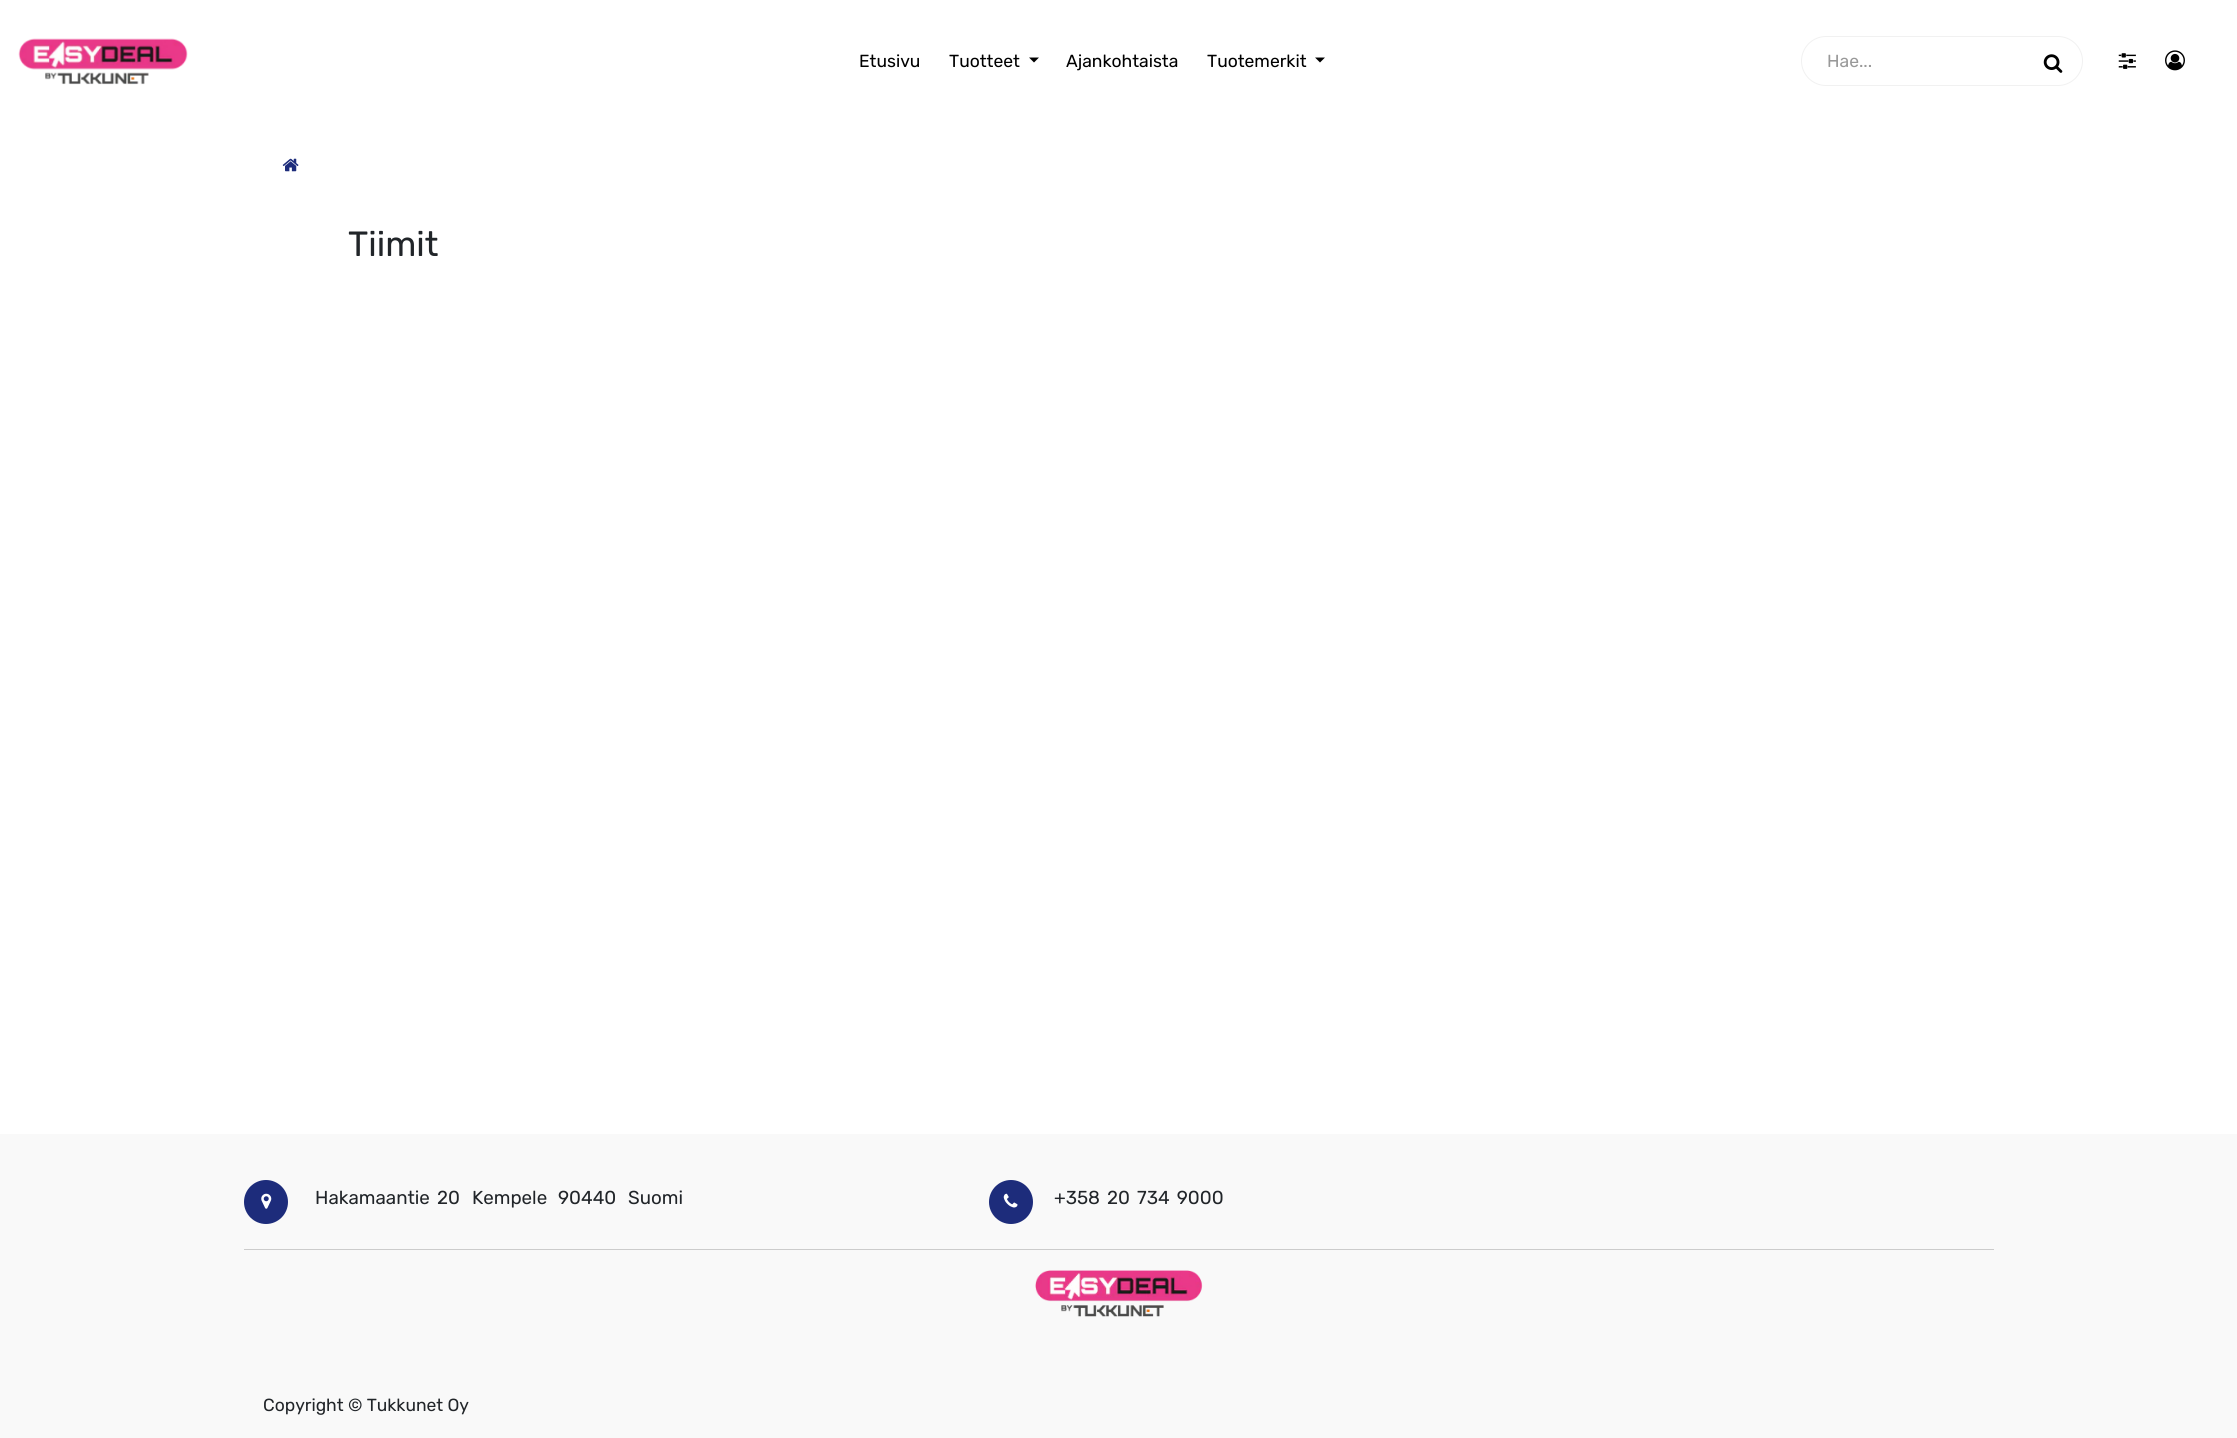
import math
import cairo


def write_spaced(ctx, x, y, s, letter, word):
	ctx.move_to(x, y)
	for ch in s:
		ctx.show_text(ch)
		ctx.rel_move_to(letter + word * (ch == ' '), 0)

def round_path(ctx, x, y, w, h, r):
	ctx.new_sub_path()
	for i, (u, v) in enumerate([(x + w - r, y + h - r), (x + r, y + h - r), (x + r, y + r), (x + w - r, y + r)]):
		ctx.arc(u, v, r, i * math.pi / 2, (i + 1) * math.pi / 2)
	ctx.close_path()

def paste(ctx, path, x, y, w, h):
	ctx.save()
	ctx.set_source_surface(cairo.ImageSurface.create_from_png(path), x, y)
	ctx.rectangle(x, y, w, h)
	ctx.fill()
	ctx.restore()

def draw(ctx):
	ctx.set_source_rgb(1, 1, 1)
	ctx.paint()
	paste(ctx, 'media/1.png', 18, 38, 170, 47)
	ctx.select_font_face('Rubik Light')
	ctx.set_font_size(17.5)
	ctx.set_source_rgb(0, 0, 0)
	ctx.move_to(859, 67)
	ctx.show_text('Etusivu')
	ctx.move_to(949, 67)
	ctx.show_text('Tuotteet')
	ctx.new_path()
	ctx.move_to(1029, 57.5)
	ctx.line_to(1039, 57.5)
	ctx.line_to(1034, 62.5)
	ctx.close_path()
	ctx.fill()
	ctx.move_to(1066, 67)
	ctx.show_text('Ajankohtaista')
	ctx.move_to(1207, 67)
	ctx.show_text('Tuotemerkit')
	ctx.new_path()
	ctx.move_to(1315, 57.5)
	ctx.line_to(1325, 57.5)
	ctx.line_to(1320, 62.5)
	ctx.close_path()
	ctx.fill()
	round_path(ctx, 1801.5, 36.5, 281, 49, 24.5)
	ctx.set_source_rgb(0.945, 0.945, 0.945)
	ctx.set_line_width(1)
	ctx.stroke()
	ctx.set_source_rgb(0.6, 0.6, 0.6)
	ctx.move_to(1827, 67)
	ctx.show_text('Hae...')
	paste(ctx, 'media/2.png', 2043, 54, 20, 19)
	paste(ctx, 'media/3.png', 2118, 53, 18, 16)
	paste(ctx, 'media/4.png', 2165, 50, 20, 21)
	paste(ctx, 'media/5.png', 282, 158, 17, 14)
	ctx.set_font_size(35)
	ctx.set_source_rgb(0.129, 0.145, 0.161)
	ctx.move_to(348, 256)
	ctx.show_text('Tiimit')
	ctx.set_source_rgb(0.976, 0.976, 0.976)
	ctx.rectangle(0, 1134, 2237, 304)
	ctx.fill()
	ctx.set_source_rgb(0.114, 0.173, 0.482)
	ctx.arc(266, 1202, 22, 0, 2 * math.pi)
	ctx.fill()
	paste(ctx, 'media/6.png', 261, 1193, 11, 16)
	ctx.set_font_size(18.75)
	ctx.set_source_rgb(0.129, 0.145, 0.161)
	write_spaced(ctx, 315, 1204, 'Hakamaantie 20', 0, 2.5)
	for x, y, s in [
		(472, 1204, 'Kempele'),
		(558, 1204, '90440'),
		(628, 1204, 'Suomi'),
	]:
		ctx.move_to(x, y)
		ctx.show_text(s)
	ctx.set_source_rgb(0.114, 0.173, 0.482)
	ctx.new_path()
	ctx.arc(1011, 1202, 22, 0, 2 * math.pi)
	ctx.fill()
	paste(ctx, 'media/7.png', 1003, 1193, 15, 15)
	ctx.set_source_rgb(0.129, 0.145, 0.161)
	write_spaced(ctx, 1054, 1204, '+358 20 734 9000', 0, 2.5)
	ctx.set_source_rgb(0.8, 0.8, 0.8)
	ctx.rectangle(244, 1249, 1750, 1)
	ctx.fill()
	paste(ctx, 'media/8.png', 1035, 1270, 168, 47)
	ctx.set_font_size(17.5)
	ctx.set_source_rgb(0.129, 0.145, 0.161)
	ctx.move_to(263, 1411)
	ctx.show_text('Copyright © Tukkunet Oy')


surface = cairo.ImageSurface(cairo.FORMAT_RGB24, 2237, 1438)
ctx = cairo.Context(surface)
options = cairo.FontOptions()
options.set_hint_metrics(cairo.HINT_METRICS_OFF)
options.set_hint_style(cairo.HINT_STYLE_NONE)
ctx.set_font_options(options)
ctx.set_miter_limit(4)
draw(ctx)
surface.write_to_png('image.png')
